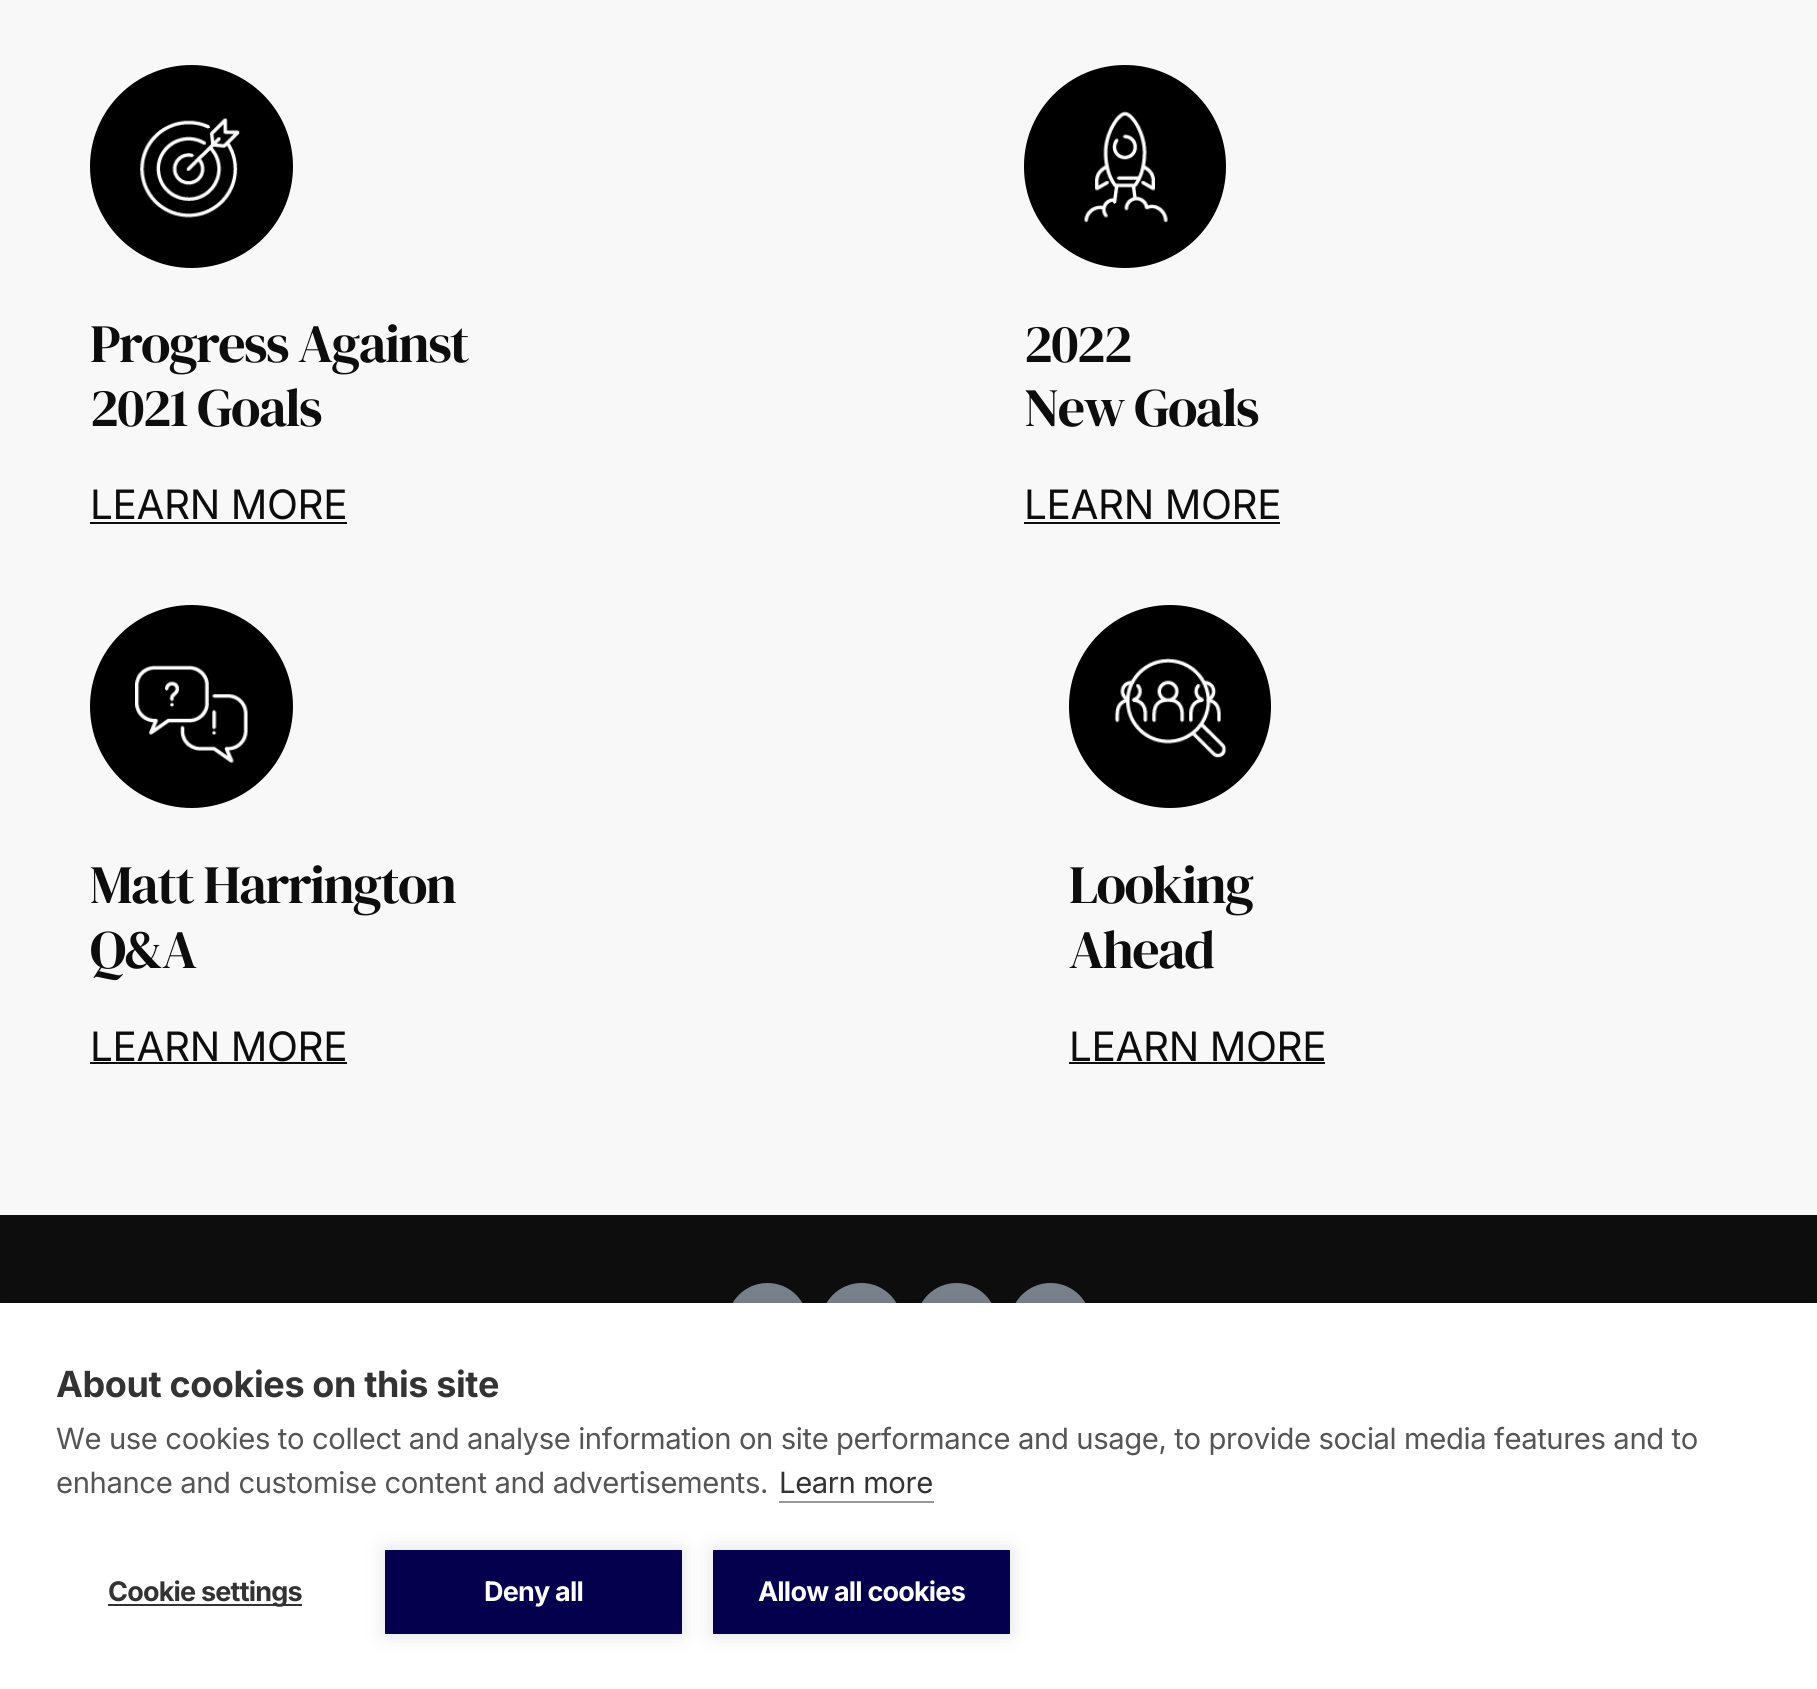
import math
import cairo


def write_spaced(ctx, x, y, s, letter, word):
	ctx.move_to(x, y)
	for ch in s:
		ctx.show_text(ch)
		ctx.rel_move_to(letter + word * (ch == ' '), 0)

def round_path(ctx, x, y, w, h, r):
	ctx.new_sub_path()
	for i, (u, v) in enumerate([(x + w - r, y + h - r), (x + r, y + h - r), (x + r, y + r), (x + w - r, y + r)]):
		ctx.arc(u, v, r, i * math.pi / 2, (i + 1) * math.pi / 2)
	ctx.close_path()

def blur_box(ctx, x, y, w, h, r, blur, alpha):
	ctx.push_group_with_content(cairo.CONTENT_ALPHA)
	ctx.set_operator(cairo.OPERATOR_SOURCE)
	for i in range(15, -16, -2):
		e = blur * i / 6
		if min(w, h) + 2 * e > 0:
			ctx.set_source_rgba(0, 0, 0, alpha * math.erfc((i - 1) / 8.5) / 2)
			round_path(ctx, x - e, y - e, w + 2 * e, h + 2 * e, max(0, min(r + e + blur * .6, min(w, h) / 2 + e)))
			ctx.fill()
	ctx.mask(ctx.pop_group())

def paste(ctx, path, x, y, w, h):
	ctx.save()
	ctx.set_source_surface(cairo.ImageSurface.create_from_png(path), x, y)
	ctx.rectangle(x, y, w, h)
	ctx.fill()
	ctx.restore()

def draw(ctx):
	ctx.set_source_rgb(0.051, 0.051, 0.051)
	ctx.paint()
	ctx.set_source_rgb(0.969, 0.969, 0.969)
	ctx.rectangle(0, 0, 1817, 1215)
	ctx.fill()
	ctx.set_source_rgb(0, 0, 0)
	ctx.arc(191.5, 166.5, 99, 0, 2 * math.pi)
	ctx.fill_preserve()
	ctx.set_line_width(5)
	ctx.stroke()
	paste(ctx, 'media/1.png', 140, 117, 101, 101)
	ctx.select_font_face('DM Serif Display')
	ctx.set_font_size(54)
	ctx.set_source_rgb(0.051, 0.051, 0.051)
	write_spaced(ctx, 90, 362, 'Progress Against', -1.6, 0)
	write_spaced(ctx, 90, 426, '2021 Goals', -1.6, 0)
	ctx.select_font_face('Inter')
	ctx.set_font_size(40.5)
	write_spaced(ctx, 90, 519, 'LEARN MORE', -0.4, 0)
	ctx.rectangle(90, 522, 257, 2)
	ctx.fill()
	ctx.set_source_rgb(0, 0, 0)
	round_path(ctx, 1026.5, 67.5, 197, 198, 98.5)
	ctx.fill_preserve()
	ctx.stroke()
	paste(ctx, 'media/2.png', 1084, 111, 84, 112)
	ctx.select_font_face('DM Serif Display')
	ctx.set_font_size(54)
	ctx.set_source_rgb(0.051, 0.051, 0.051)
	write_spaced(ctx, 1024, 362, '2022', -1.6, 0)
	write_spaced(ctx, 1024, 426, 'New Goals', -1.6, 0)
	ctx.select_font_face('Inter')
	ctx.set_font_size(40.5)
	write_spaced(ctx, 1024, 519, 'LEARN MORE', -0.4, 0)
	ctx.rectangle(1024, 522, 256, 2)
	ctx.fill()
	ctx.set_source_rgb(0, 0, 0)
	ctx.arc(191.5, 706.5, 99, 0, 2 * math.pi)
	ctx.fill_preserve()
	ctx.stroke()
	paste(ctx, 'media/3.png', 135, 665, 113, 98)
	ctx.select_font_face('DM Serif Display')
	ctx.set_font_size(54)
	ctx.set_source_rgb(0.051, 0.051, 0.051)
	write_spaced(ctx, 90, 903, 'Matt Harrington', -1.6, 0)
	write_spaced(ctx, 90, 968, 'Q&A', -1.6, 0)
	ctx.select_font_face('Inter')
	ctx.set_font_size(40.5)
	write_spaced(ctx, 90, 1061, 'LEARN MORE', -0.4, 0)
	ctx.rectangle(90, 1062, 257, 2)
	ctx.fill()
	ctx.set_source_rgb(0, 0, 0)
	round_path(ctx, 1071.5, 607.5, 197, 198, 98.5)
	ctx.fill_preserve()
	ctx.stroke()
	paste(ctx, 'media/4.png', 1114, 658, 113, 100)
	ctx.select_font_face('DM Serif Display')
	ctx.set_font_size(54)
	ctx.set_source_rgb(0.051, 0.051, 0.051)
	write_spaced(ctx, 1069, 903, 'Looking', -1.6, 0)
	write_spaced(ctx, 1069, 968, 'Ahead', -1.6, 0)
	ctx.select_font_face('Inter')
	ctx.set_font_size(40.5)
	write_spaced(ctx, 1069, 1061, 'LEARN MORE', -0.4, 0)
	ctx.rectangle(1069, 1062, 256, 2)
	ctx.fill()
	ctx.set_source_rgb(0.482, 0.518, 0.557)
	ctx.arc(767.5, 1323.5, 40.5, 0, 2 * math.pi)
	ctx.fill()
	ctx.arc(861.5, 1323.5, 40.5, 0, 2 * math.pi)
	ctx.fill()
	ctx.arc(956.5, 1323.5, 40.5, 0, 2 * math.pi)
	ctx.fill()
	ctx.arc(1050.5, 1323.5, 40.5, 0, 2 * math.pi)
	ctx.fill()
	ctx.set_source_rgb(0, 0, 0)
	blur_box(ctx, 0, 1303, 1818, 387, 0, 22.5, 0.1)
	ctx.set_source_rgb(1, 1, 1)
	ctx.rectangle(0, 1303, 1817, 386)
	ctx.fill()
	ctx.select_font_face('Inter', cairo.FONT_SLANT_NORMAL, cairo.FONT_WEIGHT_BOLD)
	ctx.set_font_size(36)
	ctx.set_source_rgb(0.2, 0.2, 0.2)
	write_spaced(ctx, 56, 1397, 'About cookies on this site', -0.4, 0)
	ctx.select_font_face('Inter')
	ctx.set_font_size(29.25)
	ctx.set_source_rgb(0.333, 0.333, 0.333)
	write_spaced(ctx, 56, 1449, 'We use cookies to collect and analyse information on site performance and usage, to provide social media features and to', -0.4, 0)
	write_spaced(ctx, 56, 1493, 'enhance and customise content and advertisements.', -0.4, 0)
	ctx.set_source_rgb(0.2, 0.2, 0.2)
	write_spaced(ctx, 779, 1493, 'Learn more', -0.4, 0)
	ctx.set_source_rgb(0.6, 0.6, 0.6)
	ctx.rectangle(779, 1501, 155, 2)
	ctx.fill()
	ctx.set_source_rgb(0.2, 0.2, 0.2)
	ctx.rectangle(108, 1604, 194, 2)
	ctx.fill()
	ctx.select_font_face('Inter', cairo.FONT_SLANT_NORMAL, cairo.FONT_WEIGHT_BOLD)
	ctx.set_font_size(27)
	write_spaced(ctx, 108, 1601, 'Cookie settings', -0.8, 0)
	ctx.set_source_rgb(0, 0, 0)
	blur_box(ctx, 385, 1550, 297, 84, 0, 11, 0.12)
	ctx.set_source_rgb(0.016, 0, 0.306)
	ctx.rectangle(385, 1550, 297, 84)
	ctx.fill()
	ctx.set_source_rgb(1, 1, 1)
	write_spaced(ctx, 484, 1601, 'Deny all', -0.8, 0)
	ctx.set_source_rgb(0, 0, 0)
	blur_box(ctx, 713, 1550, 297, 84, 0, 11, 0.12)
	ctx.set_source_rgb(0.016, 0, 0.306)
	ctx.rectangle(713, 1550, 297, 84)
	ctx.fill()
	ctx.set_source_rgb(1, 1, 1)
	write_spaced(ctx, 758, 1601, 'Allow all cookies', -0.8, 0)


surface = cairo.ImageSurface(cairo.FORMAT_RGB24, 1817, 1689)
ctx = cairo.Context(surface)
options = cairo.FontOptions()
options.set_hint_metrics(cairo.HINT_METRICS_OFF)
options.set_hint_style(cairo.HINT_STYLE_NONE)
ctx.set_font_options(options)
ctx.set_miter_limit(4)
draw(ctx)
surface.write_to_png('image.png')
